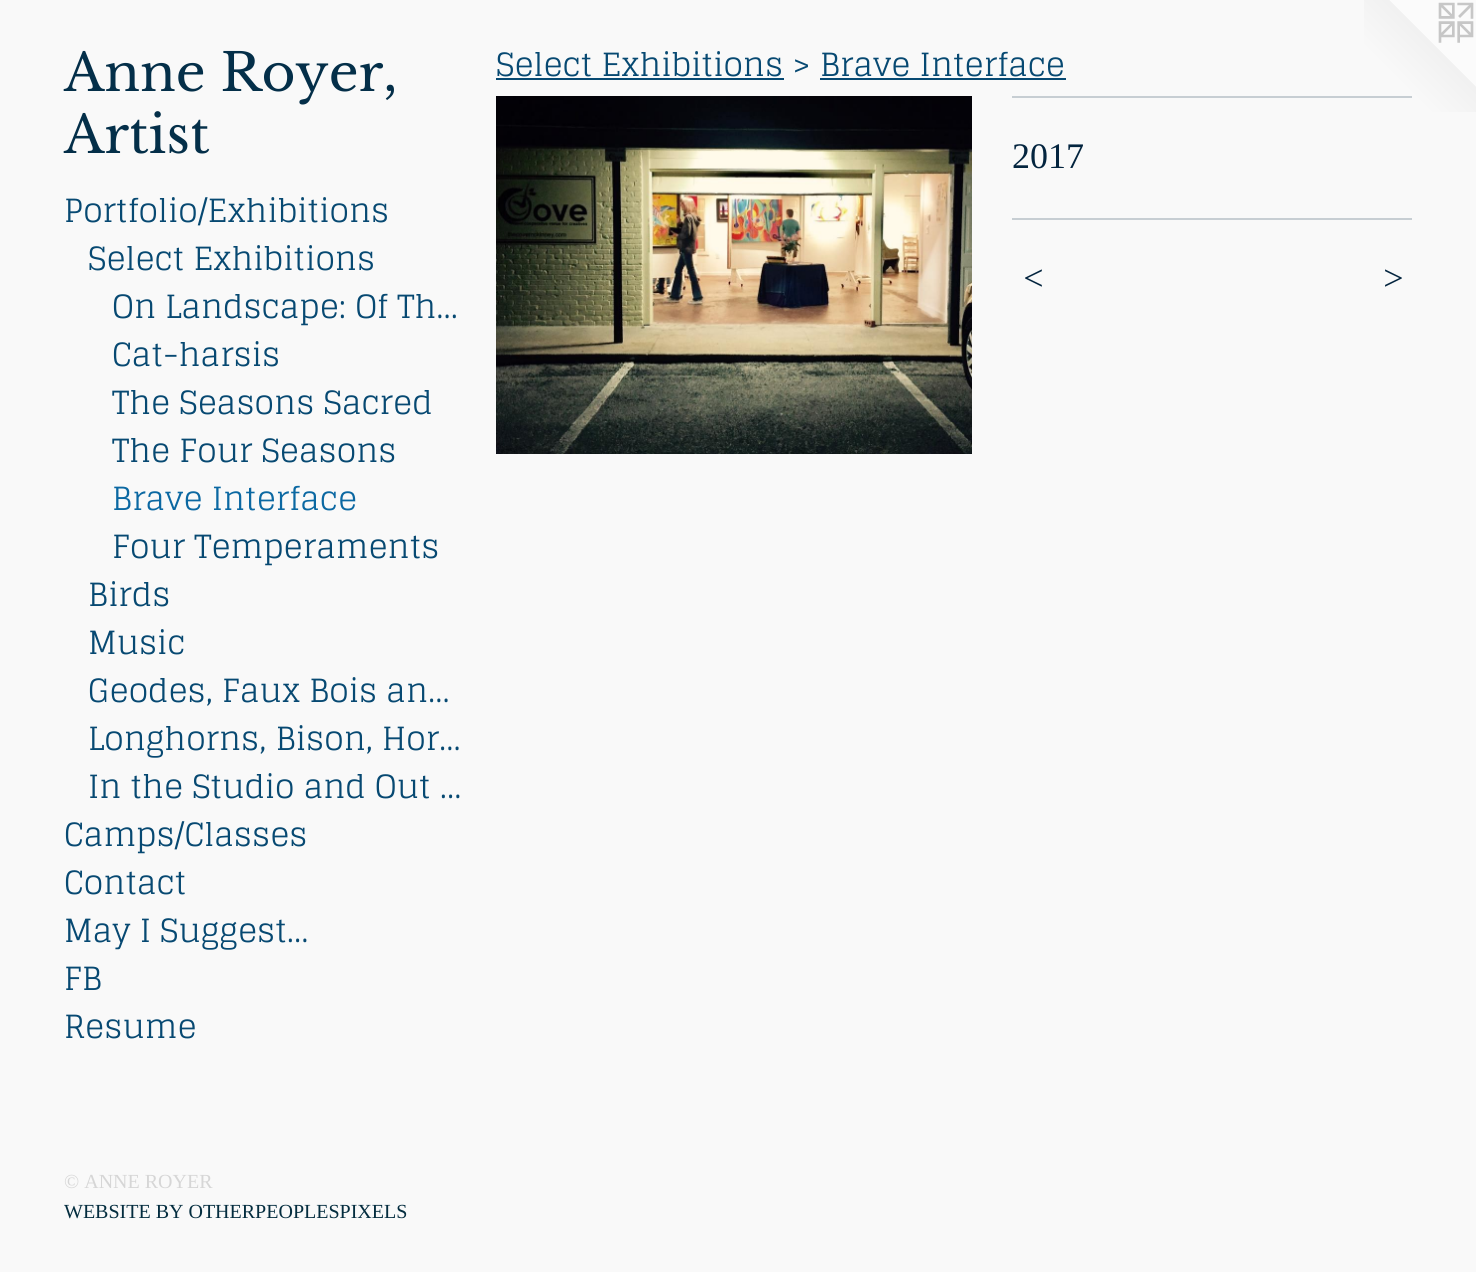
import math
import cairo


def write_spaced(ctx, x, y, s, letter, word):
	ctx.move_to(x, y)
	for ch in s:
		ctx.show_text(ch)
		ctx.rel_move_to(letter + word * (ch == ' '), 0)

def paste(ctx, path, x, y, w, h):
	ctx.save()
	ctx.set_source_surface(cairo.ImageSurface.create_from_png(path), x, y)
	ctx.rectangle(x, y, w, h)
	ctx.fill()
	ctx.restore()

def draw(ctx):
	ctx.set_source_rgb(0.973, 0.973, 0.973)
	ctx.paint()
	ctx.select_font_face('Libre Baskerville')
	ctx.set_font_size(52)
	ctx.set_source_rgb(0.016, 0.184, 0.286)
	ctx.move_to(64, 91)
	ctx.show_text('Anne Royer,')
	ctx.move_to(64, 153)
	ctx.show_text('Artist')
	ctx.select_font_face('Glegoo')
	ctx.set_font_size(32)
	ctx.set_source_rgb(0.031, 0.286, 0.447)
	for x, y, s in [
		(64, 222, 'Portfolio/Exhibitions'),
		(88, 270, 'Select Exhibitions'),
		(112, 318, 'On Landscape: Of Th…'),
		(112, 366, 'Cat-harsis'),
		(112, 414, 'The Seasons Sacred'),
		(112, 462, 'The Four Seasons'),
	]:
		ctx.move_to(x, y)
		ctx.show_text(s)
	ctx.set_source_rgb(0.043, 0.408, 0.635)
	ctx.move_to(112, 510)
	ctx.show_text('Brave Interface')
	ctx.set_source_rgb(0.031, 0.286, 0.447)
	for x, y, s in [
		(112, 558, 'Four Temperaments'),
		(88, 606, 'Birds'),
		(88, 654, 'Music'),
		(88, 702, 'Geodes, Faux Bois an…'),
		(88, 750, 'Longhorns, Bison, Hor…'),
		(88, 798, 'In the Studio and Out …'),
		(64, 846, 'Camps/Classes'),
		(64, 894, 'Contact'),
		(64, 942, 'May I Suggest...'),
		(64, 990, 'FB'),
		(64, 1038, 'Resume'),
	]:
		ctx.move_to(x, y)
		ctx.show_text(s)
	ctx.select_font_face('Liberation Serif')
	ctx.set_font_size(20)
	ctx.set_source_rgb(0.839, 0.839, 0.839)
	ctx.move_to(64, 1188)
	ctx.show_text('© ANNE ROYER')
	ctx.set_source_rgb(0.016, 0.176, 0.247)
	ctx.move_to(64, 1218)
	ctx.show_text('WEBSITE BY OTHERPEOPLESPIXELS')
	ctx.select_font_face('Glegoo')
	ctx.set_font_size(32)
	ctx.set_source_rgb(0.031, 0.286, 0.447)
	ctx.move_to(496, 76)
	ctx.show_text('Select Exhibitions > Brave Interface')
	ctx.rectangle(496, 78, 288, 2)
	ctx.fill()
	ctx.rectangle(820, 78, 246, 2)
	ctx.fill()
	paste(ctx, 'media/1.png', 496, 96, 476, 358)
	paste(ctx, 'media/2.png', 1364, 0, 112, 112)
	ctx.set_source_rgb(0.78, 0.808, 0.827)
	ctx.rectangle(1012, 96, 400, 2)
	ctx.fill()
	ctx.select_font_face('Liberation Serif')
	ctx.set_font_size(36)
	ctx.set_source_rgb(0.016, 0.145, 0.247)
	ctx.move_to(1012, 168)
	ctx.show_text('2017')
	ctx.set_source_rgb(0.78, 0.808, 0.827)
	ctx.rectangle(1012, 218, 400, 2)
	ctx.fill()
	ctx.select_font_face('Liberation Serif', cairo.FONT_SLANT_ITALIC)
	ctx.set_source_rgb(0.016, 0.145, 0.247)
	write_spaced(ctx, 1021, 290, '<', 2, 0)
	write_spaced(ctx, 1381, 290, '>', 2, 0)


surface = cairo.ImageSurface(cairo.FORMAT_RGB24, 1476, 1272)
ctx = cairo.Context(surface)
options = cairo.FontOptions()
options.set_hint_metrics(cairo.HINT_METRICS_OFF)
options.set_hint_style(cairo.HINT_STYLE_NONE)
ctx.set_font_options(options)
ctx.set_miter_limit(4)
draw(ctx)
surface.write_to_png('image.png')
